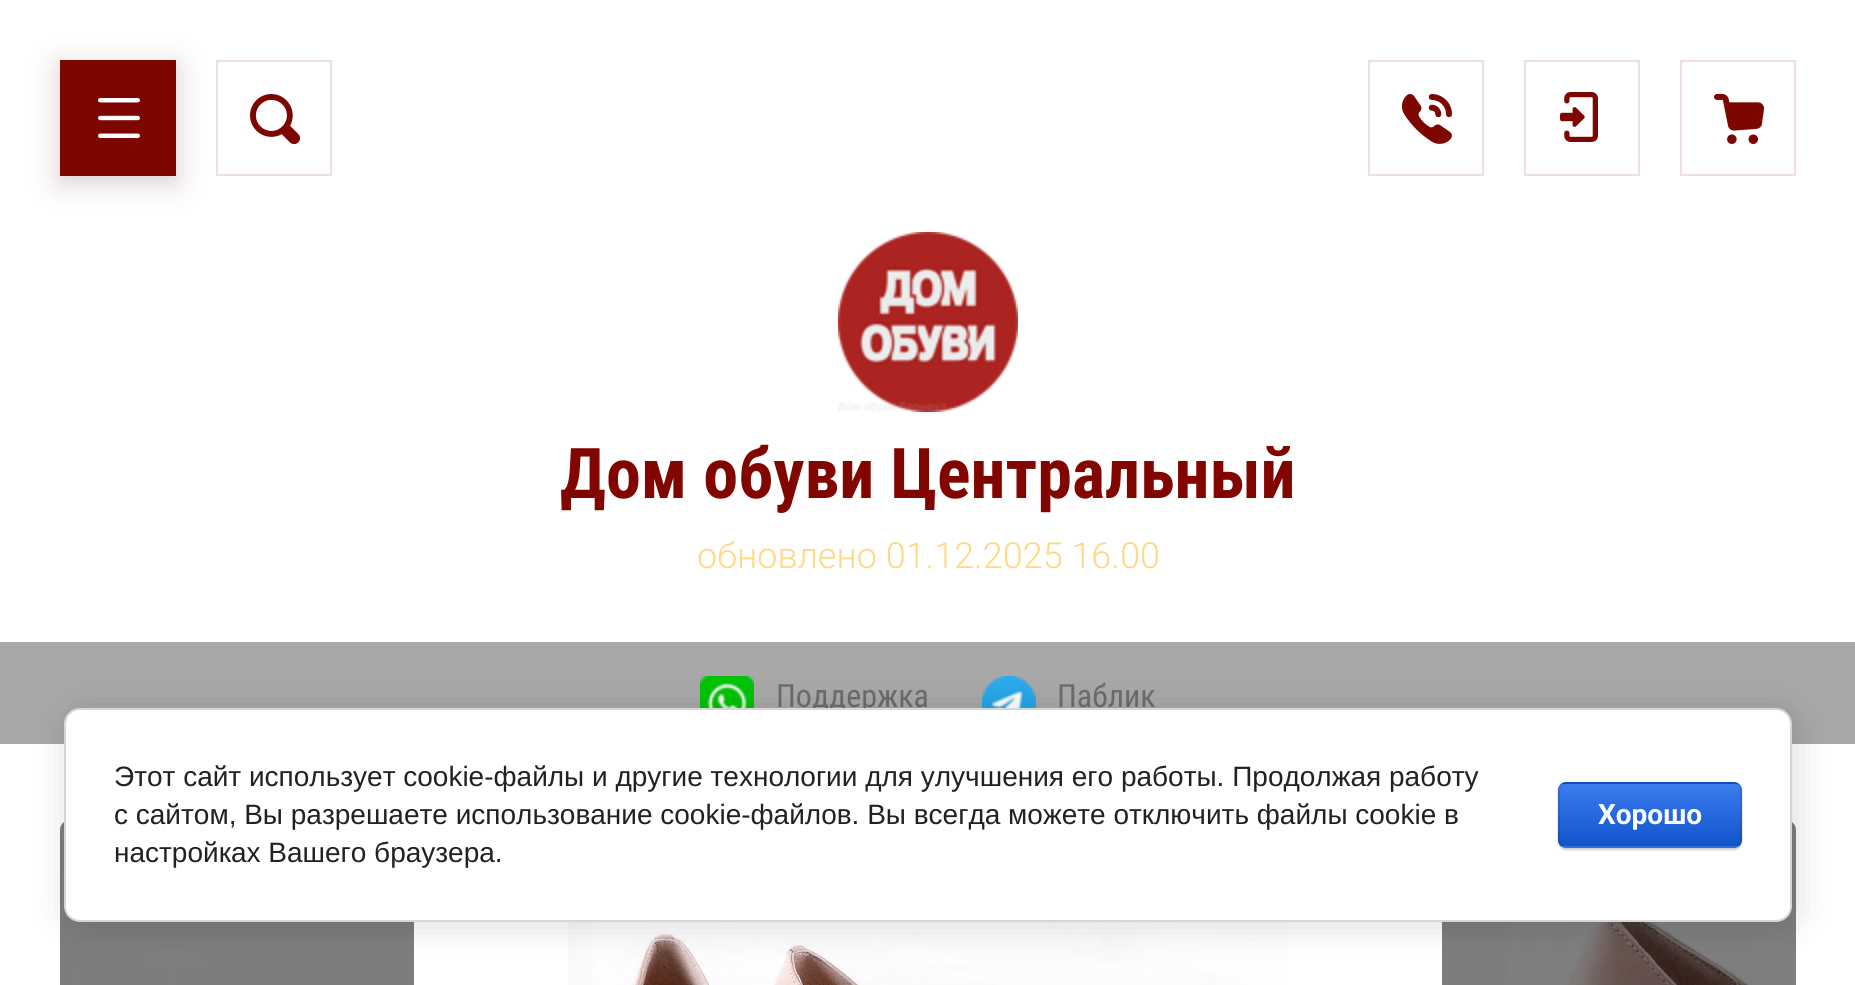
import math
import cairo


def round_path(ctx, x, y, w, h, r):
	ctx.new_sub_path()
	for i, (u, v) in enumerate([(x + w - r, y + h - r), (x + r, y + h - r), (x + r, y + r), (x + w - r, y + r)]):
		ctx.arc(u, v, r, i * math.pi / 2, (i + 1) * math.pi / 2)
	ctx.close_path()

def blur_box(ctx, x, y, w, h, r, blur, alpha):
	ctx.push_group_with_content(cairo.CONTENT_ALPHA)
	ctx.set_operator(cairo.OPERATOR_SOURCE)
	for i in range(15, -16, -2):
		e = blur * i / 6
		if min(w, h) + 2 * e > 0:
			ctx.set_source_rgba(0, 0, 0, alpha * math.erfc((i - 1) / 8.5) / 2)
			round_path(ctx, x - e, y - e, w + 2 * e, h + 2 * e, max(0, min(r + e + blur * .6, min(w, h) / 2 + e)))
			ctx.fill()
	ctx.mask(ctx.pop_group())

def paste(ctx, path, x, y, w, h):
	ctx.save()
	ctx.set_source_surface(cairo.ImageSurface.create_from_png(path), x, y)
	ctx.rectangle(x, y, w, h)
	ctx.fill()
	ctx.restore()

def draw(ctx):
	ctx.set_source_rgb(1, 1, 1)
	ctx.paint()
	ctx.set_source_rgb(0.365, 0.125, 0.145)
	blur_box(ctx, 60, 66, 116, 116, 0, 15, 0.23)
	ctx.set_source_rgb(0.494, 0.024, 0)
	ctx.rectangle(60, 60, 116, 116)
	ctx.fill()
	paste(ctx, 'media/1.png', 98, 98, 42, 40)
	ctx.rectangle(217, 61, 114, 114)
	ctx.set_source_rgb(0.937, 0.875, 0.871)
	ctx.stroke()
	paste(ctx, 'media/2.png', 250, 94, 50, 50)
	ctx.rectangle(1369, 61, 114, 114)
	ctx.stroke()
	paste(ctx, 'media/3.png', 1402, 94, 50, 50)
	ctx.rectangle(1525, 61, 114, 114)
	ctx.stroke()
	paste(ctx, 'media/4.png', 1560, 92, 38, 50)
	ctx.rectangle(1681, 61, 114, 114)
	ctx.stroke()
	paste(ctx, 'media/5.png', 1714, 94, 50, 50)
	paste(ctx, 'media/6.png', 838, 232, 180, 180)
	ctx.select_font_face('Roboto Condensed', cairo.FONT_SLANT_NORMAL, cairo.FONT_WEIGHT_BOLD)
	ctx.set_font_size(70)
	ctx.set_source_rgb(0.506, 0.024, 0)
	ctx.move_to(560, 498)
	ctx.show_text('Дом обуви Центральный')
	ctx.select_font_face('Roboto Light')
	ctx.set_font_size(36)
	ctx.set_source_rgb(1, 0.847, 0.518)
	ctx.move_to(697, 568)
	ctx.show_text('обновлено 01.12.2025 16.00')
	ctx.set_source_rgb(0.659, 0.659, 0.659)
	ctx.rectangle(0, 642, 1855, 102)
	ctx.fill()
	paste(ctx, 'media/7.png', 700, 676, 54, 32)
	ctx.select_font_face('Roboto Condensed')
	ctx.set_font_size(32)
	ctx.set_source_rgb(0.424, 0.424, 0.424)
	ctx.move_to(776, 707)
	ctx.show_text('Поддержка')
	paste(ctx, 'media/8.png', 982, 676, 54, 32)
	ctx.move_to(1057, 707)
	ctx.show_text('Паблик')
	paste(ctx, 'media/9.png', 60, 822, 354, 163)
	ctx.set_source_rgba(0, 0, 0, 0.5)
	ctx.new_path()
	ctx.move_to(70, 820)
	ctx.line_to(414, 820)
	ctx.line_to(414, 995)
	ctx.line_to(70, 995)
	ctx.curve_to(64.5, 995, 60, 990.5, 60, 985)
	ctx.line_to(60, 830)
	ctx.curve_to(60, 824.5, 64.5, 820, 70, 820)
	ctx.close_path()
	ctx.fill()
	paste(ctx, 'media/11.png', 1442, 922, 312, 63)
	ctx.new_path()
	ctx.move_to(1442, 820)
	ctx.line_to(1786, 820)
	ctx.curve_to(1791.5, 820, 1796, 824.5, 1796, 830)
	ctx.line_to(1796, 985)
	ctx.curve_to(1796, 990.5, 1791.5, 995, 1786, 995)
	ctx.line_to(1442, 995)
	ctx.close_path()
	ctx.fill()
	paste(ctx, 'media/10.png', 568, 922, 720, 63)
	ctx.set_source_rgb(0, 0, 0)
	blur_box(ctx, 68, 712, 1728, 214, 16, 18, 0.14)
	ctx.set_source_rgb(1, 1, 1)
	round_path(ctx, 65, 709, 1726, 212, 15)
	ctx.fill_preserve()
	ctx.set_source_rgb(0.839, 0.839, 0.839)
	ctx.stroke()
	ctx.select_font_face('Liberation Sans')
	ctx.set_font_size(28)
	ctx.set_source_rgb(0.129, 0.129, 0.129)
	for x, y, s in [
		(114, 786, 'Этот сайт использует cookie-файлы и другие технологии для улучшения его работы. Продолжая работу'),
		(114, 824, 'с сайтом, Вы разрешаете использование cookie-файлов. Вы всегда можете отключить файлы cookie в'),
		(114, 862, 'настройках Вашего браузера.'),
	]:
		ctx.move_to(x, y)
		ctx.show_text(s)
	ctx.set_source_rgb(0, 0, 0)
	blur_box(ctx, 1558, 784, 184, 66, 8, 1, 0.2)
	ctx.save()
	round_path(ctx, 1558, 782, 184, 66, 8)
	ctx.clip()
	gradient = cairo.LinearGradient(1650, 722, 1650, 784)
	gradient.add_color_stop_rgba(0, 0.231, 0.486, 0.937, 1)
	gradient.add_color_stop_rgba(1, 0.067, 0.333, 0.8, 1)
	ctx.set_source(gradient)
	ctx.rectangle(1558, 782, 184, 2)
	ctx.fill()
	gradient = cairo.LinearGradient(1650, 784, 1650, 846)
	gradient.add_color_stop_rgba(0, 0.231, 0.486, 0.937, 1)
	gradient.add_color_stop_rgba(1, 0.067, 0.333, 0.8, 1)
	ctx.set_source(gradient)
	ctx.rectangle(1558, 784, 184, 62)
	ctx.fill()
	gradient = cairo.LinearGradient(1650, 846, 1650, 908)
	gradient.add_color_stop_rgba(0, 0.231, 0.486, 0.937, 1)
	gradient.add_color_stop_rgba(1, 0.067, 0.333, 0.8, 1)
	ctx.set_source(gradient)
	ctx.rectangle(1558, 846, 184, 2)
	ctx.fill()
	ctx.restore()
	round_path(ctx, 1559, 783, 182, 64, 7)
	ctx.set_source_rgba(0, 0, 0, 0.1)
	ctx.stroke()
	ctx.select_font_face('Roboto', cairo.FONT_SLANT_NORMAL, cairo.FONT_WEIGHT_BOLD)
	ctx.set_source_rgb(1, 1, 1)
	ctx.move_to(1598, 824)
	ctx.show_text('Хорошо')


surface = cairo.ImageSurface(cairo.FORMAT_RGB24, 1855, 985)
ctx = cairo.Context(surface)
options = cairo.FontOptions()
options.set_hint_metrics(cairo.HINT_METRICS_OFF)
options.set_hint_style(cairo.HINT_STYLE_NONE)
ctx.set_font_options(options)
ctx.set_miter_limit(4)
draw(ctx)
surface.write_to_png('image.png')
